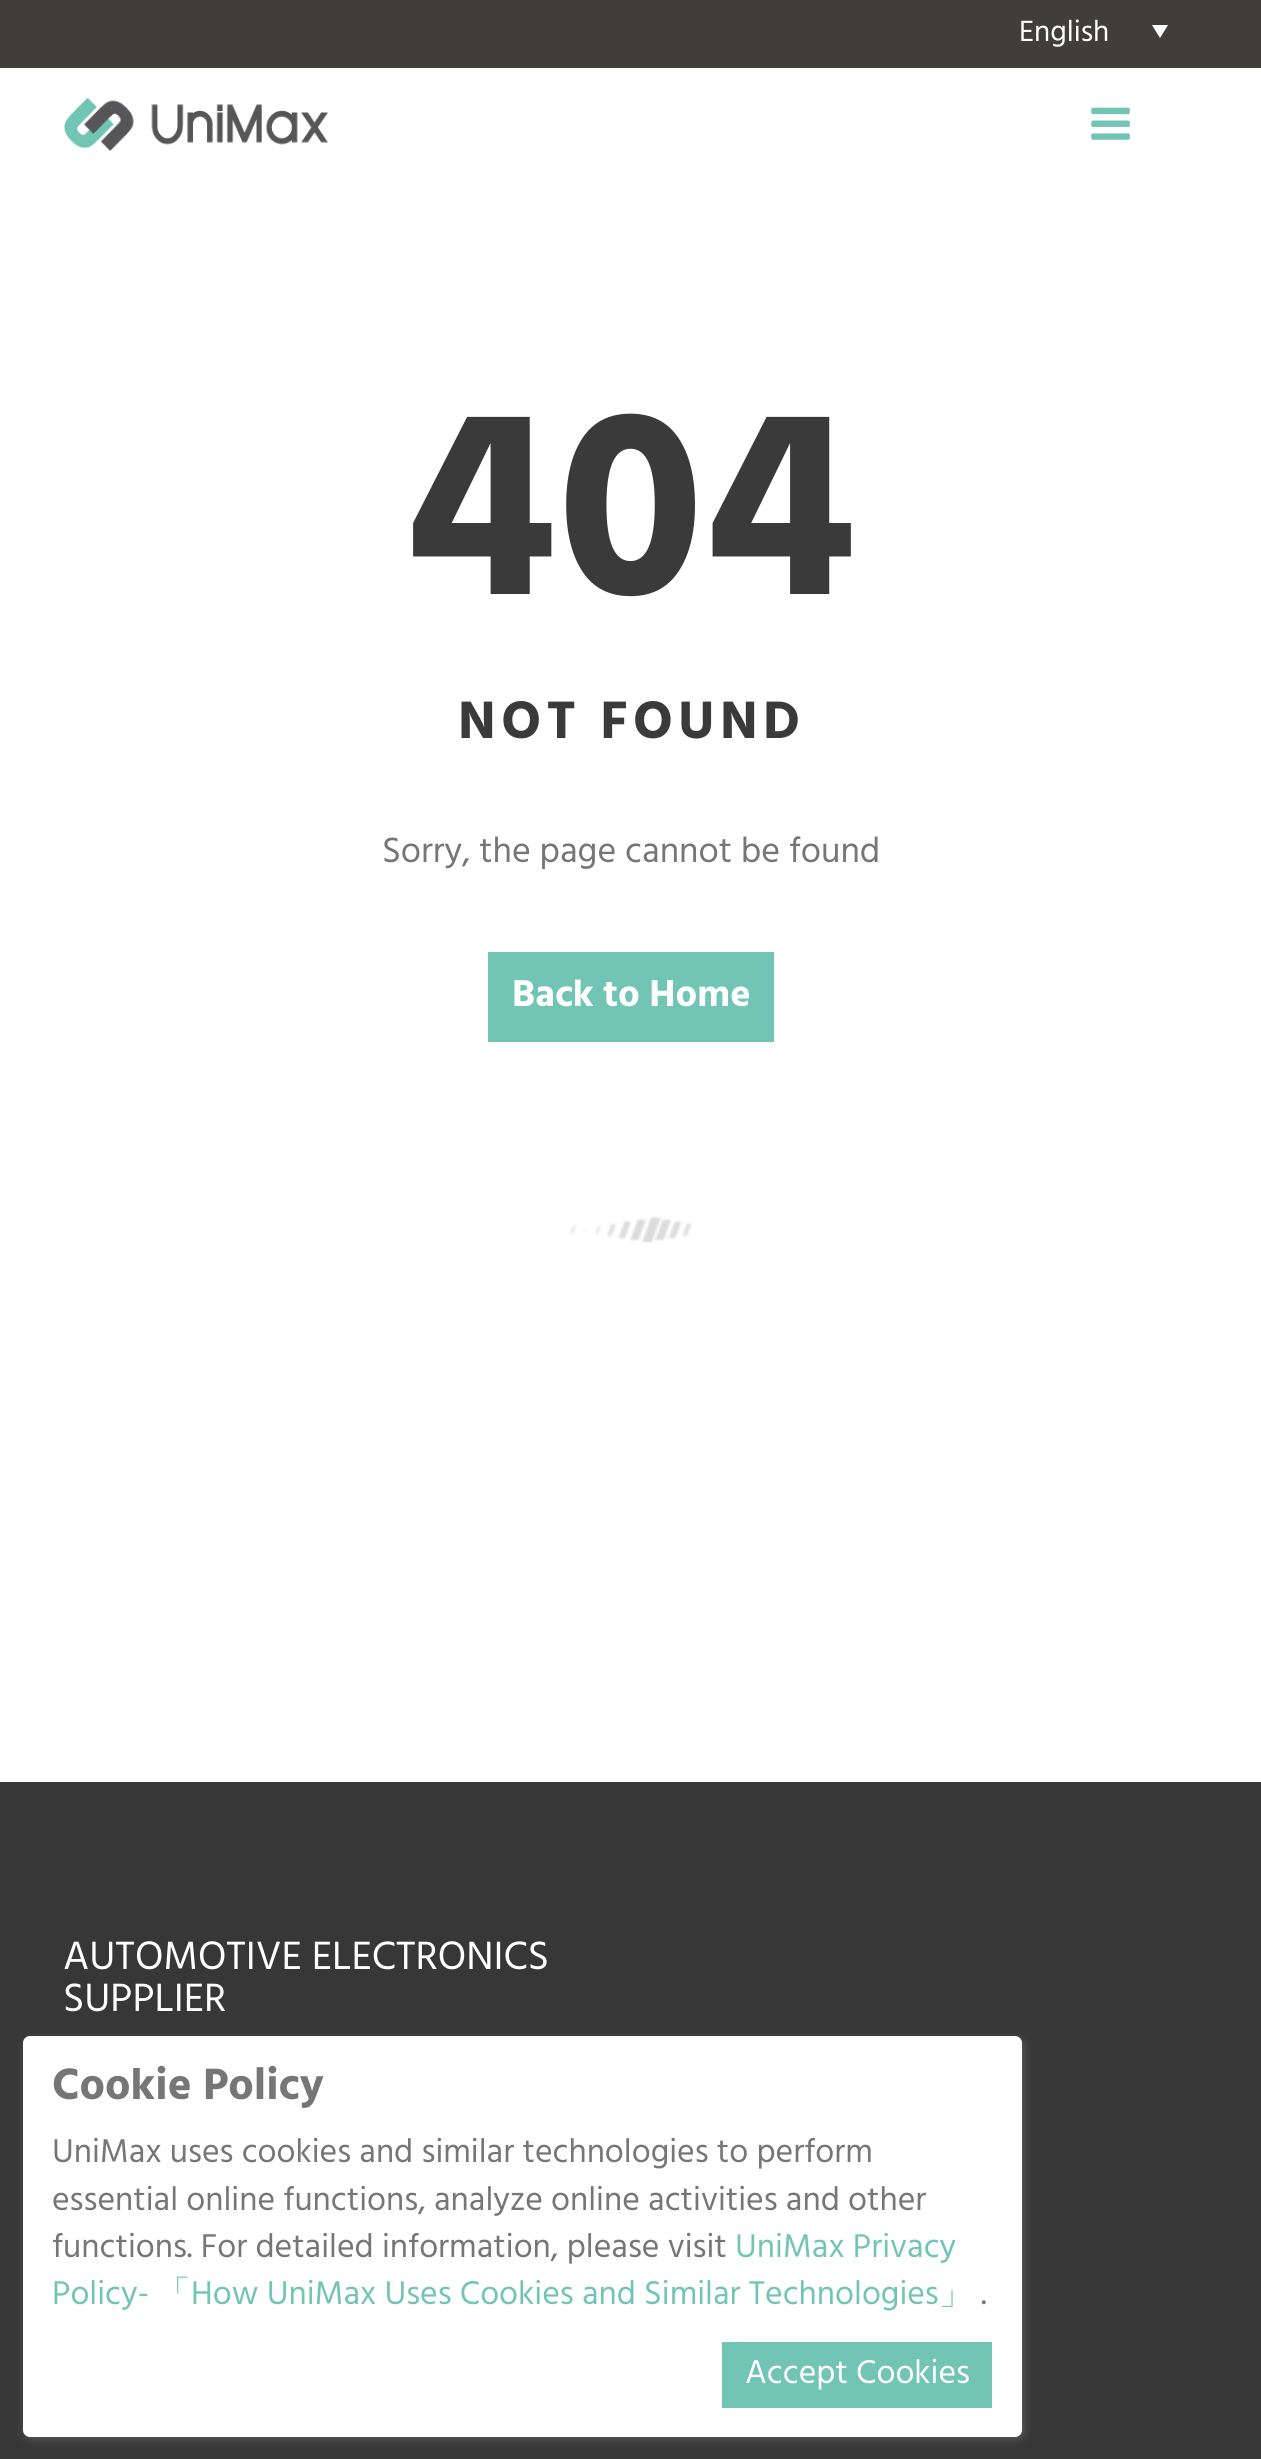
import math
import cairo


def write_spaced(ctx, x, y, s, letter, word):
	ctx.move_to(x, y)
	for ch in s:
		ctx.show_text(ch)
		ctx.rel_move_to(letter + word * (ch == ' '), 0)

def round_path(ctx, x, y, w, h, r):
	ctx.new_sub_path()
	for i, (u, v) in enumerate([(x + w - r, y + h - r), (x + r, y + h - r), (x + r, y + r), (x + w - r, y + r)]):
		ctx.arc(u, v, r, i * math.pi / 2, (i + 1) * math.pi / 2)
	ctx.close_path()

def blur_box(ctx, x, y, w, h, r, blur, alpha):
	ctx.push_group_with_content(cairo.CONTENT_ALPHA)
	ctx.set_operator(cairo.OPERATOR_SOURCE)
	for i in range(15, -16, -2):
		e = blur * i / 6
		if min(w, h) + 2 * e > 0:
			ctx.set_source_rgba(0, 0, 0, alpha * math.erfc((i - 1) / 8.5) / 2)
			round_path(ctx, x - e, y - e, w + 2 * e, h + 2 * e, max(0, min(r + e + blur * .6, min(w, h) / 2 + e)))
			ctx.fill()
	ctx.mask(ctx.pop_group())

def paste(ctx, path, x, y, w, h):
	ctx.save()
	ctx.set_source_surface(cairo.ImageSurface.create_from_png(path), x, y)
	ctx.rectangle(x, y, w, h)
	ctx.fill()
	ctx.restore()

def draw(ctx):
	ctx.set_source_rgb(1, 1, 1)
	ctx.paint()
	ctx.set_source_rgb(0.251, 0.243, 0.231)
	ctx.rectangle(0, 0, 1261, 68)
	ctx.fill()
	ctx.set_source_rgb(1, 1, 1)
	ctx.new_path()
	ctx.move_to(1160, 38)
	ctx.line_to(1152, 25)
	ctx.line_to(1168, 25)
	ctx.close_path()
	ctx.fill()
	ctx.select_font_face('Hind')
	ctx.set_font_size(30)
	ctx.move_to(1019, 41)
	ctx.show_text('English')
	paste(ctx, 'media/1.png', 64, 97, 265, 55)
	paste(ctx, 'media/2.png', 1091, 107, 39, 33)
	ctx.select_font_face('Hind', cairo.FONT_SLANT_NORMAL, cairo.FONT_WEIGHT_BOLD)
	ctx.set_font_size(270)
	ctx.set_source_rgb(0.227, 0.227, 0.227)
	ctx.move_to(405, 594)
	ctx.show_text('404')
	ctx.set_font_size(54)
	write_spaced(ctx, 458, 738, 'NOT FOUND', 5.5, 0)
	ctx.select_font_face('Hind')
	ctx.set_font_size(36)
	ctx.set_source_rgb(0.463, 0.463, 0.463)
	ctx.move_to(382, 862)
	ctx.show_text('Sorry, the page cannot be found')
	ctx.set_source_rgb(0.447, 0.773, 0.706)
	ctx.rectangle(488, 952, 286, 90)
	ctx.fill()
	ctx.select_font_face('Hind', cairo.FONT_SLANT_NORMAL, cairo.FONT_WEIGHT_BOLD)
	ctx.set_font_size(38.25)
	ctx.set_source_rgb(1, 1, 1)
	ctx.move_to(512, 1006)
	ctx.show_text('Back to Home')
	ctx.set_source_rgb(0.216, 0.216, 0.216)
	ctx.rectangle(0, 1782, 1261, 677)
	ctx.fill()
	ctx.select_font_face('Hind')
	ctx.set_font_size(40.5)
	ctx.set_source_rgb(1, 1, 1)
	ctx.move_to(63, 1969)
	ctx.show_text('AUTOMOTIVE ELECTRONICS')
	ctx.move_to(63, 2011)
	ctx.show_text('SUPPLIER')
	ctx.set_source_rgb(0.416, 0.416, 0.416)
	blur_box(ctx, 27, 2041, 995, 396, 5, 5.5, 1)
	ctx.set_source_rgb(1, 1, 1)
	round_path(ctx, 23, 2036, 999, 401, 7)
	ctx.fill()
	ctx.select_font_face('Hind', cairo.FONT_SLANT_NORMAL, cairo.FONT_WEIGHT_BOLD)
	ctx.set_font_size(45)
	ctx.set_source_rgb(0.463, 0.463, 0.463)
	ctx.move_to(52, 2099)
	ctx.show_text('Cookie Policy')
	ctx.select_font_face('Hind')
	ctx.set_font_size(33.75)
	for x, y, s in [
		(52, 2162, 'UniMax uses cookies and similar technologies to perform'),
		(52, 2210, 'essential online functions, analyze online activities and other'),
		(52, 2257, 'functions. For detailed information, please visit'),
	]:
		ctx.move_to(x, y)
		ctx.show_text(s)
	ctx.set_source_rgb(0.447, 0.773, 0.706)
	ctx.move_to(735, 2257)
	ctx.show_text('UniMax Privacy')
	ctx.move_to(52, 2304)
	ctx.show_text('Policy-')
	ctx.select_font_face('WenQuanYi Zen Hei Medium')
	ctx.move_to(157, 2304)
	ctx.show_text('「')
	ctx.select_font_face('Hind')
	ctx.move_to(191, 2304)
	ctx.show_text('How UniMax Uses Cookies and Similar Technologies')
	ctx.select_font_face('WenQuanYi Zen Hei Medium')
	ctx.move_to(939, 2304)
	ctx.show_text('」')
	ctx.select_font_face('Hind')
	ctx.set_source_rgb(0.463, 0.463, 0.463)
	ctx.move_to(981, 2304)
	ctx.show_text('.')
	ctx.set_source_rgb(0.447, 0.773, 0.706)
	ctx.rectangle(722, 2342, 270, 66)
	ctx.fill()
	ctx.set_source_rgb(1, 1, 1)
	ctx.move_to(745, 2383)
	ctx.show_text('Accept Cookies')
	paste(ctx, 'media/3.png', 569, 1216, 123, 27)


surface = cairo.ImageSurface(cairo.FORMAT_RGB24, 1261, 2459)
ctx = cairo.Context(surface)
options = cairo.FontOptions()
options.set_hint_metrics(cairo.HINT_METRICS_OFF)
options.set_hint_style(cairo.HINT_STYLE_NONE)
ctx.set_font_options(options)
ctx.set_miter_limit(4)
draw(ctx)
surface.write_to_png('image.png')
